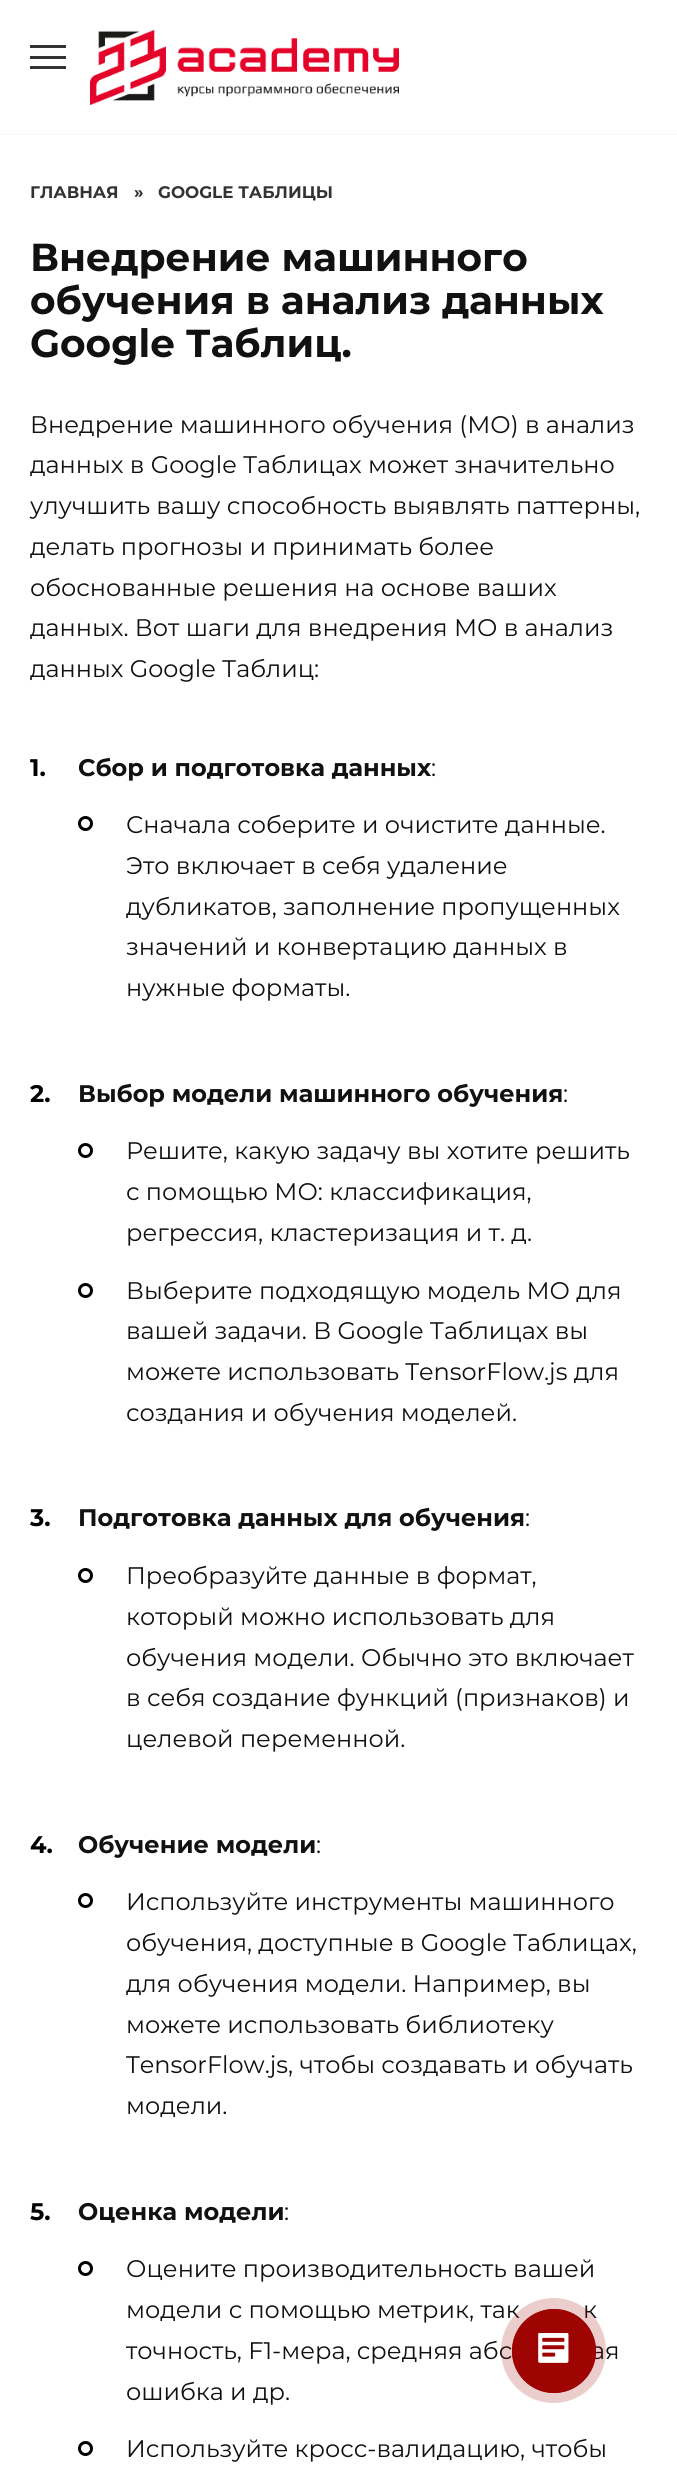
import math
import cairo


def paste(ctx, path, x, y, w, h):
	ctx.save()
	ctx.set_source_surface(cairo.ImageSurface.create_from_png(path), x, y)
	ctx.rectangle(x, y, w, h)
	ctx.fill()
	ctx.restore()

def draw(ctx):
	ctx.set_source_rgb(1, 1, 1)
	ctx.paint()
	ctx.set_source_rgb(0.949, 0.961, 0.976)
	ctx.rectangle(0, 134, 677, 1)
	ctx.fill()
	ctx.set_source_rgb(0.2, 0.2, 0.2)
	ctx.rectangle(30, 45, 36, 3)
	ctx.rectangle(30, 56, 36, 3)
	ctx.rectangle(30, 66, 36, 3)
	ctx.fill()
	paste(ctx, 'media/1.png', 90, 30, 309, 75)
	ctx.select_font_face('Montserrat', cairo.FONT_SLANT_NORMAL, cairo.FONT_WEIGHT_BOLD)
	ctx.set_font_size(16.75)
	for x, y, s in [
		(30, 198, 'ГЛАВНАЯ'),
		(134, 198, '»'),
		(158, 198, 'GOOGLE ТАБЛИЦЫ'),
	]:
		ctx.move_to(x, y)
		ctx.show_text(s)
	ctx.set_font_size(39)
	ctx.set_source_rgb(0.067, 0.067, 0.067)
	for x, y, s in [
		(30, 271, 'Внедрение машинного'),
		(30, 314, 'обучения в анализ данных'),
		(30, 357, 'Google Таблиц.'),
	]:
		ctx.move_to(x, y)
		ctx.show_text(s)
	ctx.select_font_face('Montserrat')
	ctx.set_font_size(24)
	for x, y, s in [
		(30, 433, 'Внедрение машинного обучения (МО) в анализ'),
		(30, 473, 'данных в Google Таблицах может значительно'),
		(30, 514, 'улучшить вашу способность выявлять паттерны,'),
		(30, 555, 'делать прогнозы и принимать более'),
		(30, 596, 'обоснованные решения на основе ваших'),
		(30, 636, 'данных. Вот шаги для внедрения МО в анализ'),
		(30, 677, 'данных Google Таблиц:'),
	]:
		ctx.move_to(x, y)
		ctx.show_text(s)
	ctx.select_font_face('Montserrat', cairo.FONT_SLANT_NORMAL, cairo.FONT_WEIGHT_BOLD)
	ctx.set_source_rgb(0, 0, 0)
	ctx.move_to(30, 776)
	ctx.show_text('1.')
	ctx.set_source_rgb(0.067, 0.067, 0.067)
	ctx.move_to(78, 776)
	ctx.show_text('Сбор и подготовка данных')
	ctx.select_font_face('Montserrat')
	ctx.move_to(431, 776)
	ctx.show_text(':')
	ctx.new_path()
	ctx.arc(85.5, 823.5, 6, 0, 2 * math.pi)
	ctx.set_source_rgb(0, 0, 0)
	ctx.set_line_width(3)
	ctx.stroke()
	ctx.set_source_rgb(0.067, 0.067, 0.067)
	for x, y, s in [
		(126, 833, 'Сначала соберите и очистите данные.'),
		(126, 874, 'Это включает в себя удаление'),
		(126, 915, 'дубликатов, заполнение пропущенных'),
		(126, 955, 'значений и конвертацию данных в'),
		(126, 996, 'нужные форматы.'),
	]:
		ctx.move_to(x, y)
		ctx.show_text(s)
	ctx.select_font_face('Montserrat', cairo.FONT_SLANT_NORMAL, cairo.FONT_WEIGHT_BOLD)
	ctx.set_source_rgb(0, 0, 0)
	ctx.move_to(30, 1102)
	ctx.show_text('2.')
	ctx.set_source_rgb(0.067, 0.067, 0.067)
	ctx.move_to(78, 1102)
	ctx.show_text('Выбор модели машинного обучения')
	ctx.select_font_face('Montserrat')
	ctx.move_to(563, 1102)
	ctx.show_text(':')
	ctx.new_path()
	ctx.arc(85.5, 1150.5, 6, 0, 2 * math.pi)
	ctx.set_source_rgb(0, 0, 0)
	ctx.stroke()
	ctx.set_source_rgb(0.067, 0.067, 0.067)
	for x, y, s in [
		(126, 1159, 'Решите, какую задачу вы хотите решить'),
		(126, 1200, 'с помощью МО: классификация,'),
		(126, 1241, 'регрессия, кластеризация и т. д.'),
	]:
		ctx.move_to(x, y)
		ctx.show_text(s)
	ctx.new_path()
	ctx.arc(85.5, 1290.5, 6, 0, 2 * math.pi)
	ctx.set_source_rgb(0, 0, 0)
	ctx.stroke()
	ctx.set_source_rgb(0.067, 0.067, 0.067)
	for x, y, s in [
		(126, 1299, 'Выберите подходящую модель МО для'),
		(126, 1339, 'вашей задачи. В Google Таблицах вы'),
		(126, 1380, 'можете использовать TensorFlow.js для'),
		(126, 1421, 'создания и обучения моделей.'),
	]:
		ctx.move_to(x, y)
		ctx.show_text(s)
	ctx.select_font_face('Montserrat', cairo.FONT_SLANT_NORMAL, cairo.FONT_WEIGHT_BOLD)
	ctx.set_source_rgb(0, 0, 0)
	ctx.move_to(30, 1526)
	ctx.show_text('3.')
	ctx.set_source_rgb(0.067, 0.067, 0.067)
	ctx.move_to(78, 1526)
	ctx.show_text('Подготовка данных для обучения')
	ctx.select_font_face('Montserrat')
	ctx.move_to(525, 1526)
	ctx.show_text(':')
	ctx.new_path()
	ctx.arc(85.5, 1575.5, 6, 0, 2 * math.pi)
	ctx.set_source_rgb(0, 0, 0)
	ctx.stroke()
	ctx.set_source_rgb(0.067, 0.067, 0.067)
	for x, y, s in [
		(126, 1584, 'Преобразуйте данные в формат,'),
		(126, 1625, 'который можно использовать для'),
		(126, 1666, 'обучения модели. Обычно это включает'),
		(126, 1706, 'в себя создание функций (признаков) и'),
		(126, 1747, 'целевой переменной.'),
	]:
		ctx.move_to(x, y)
		ctx.show_text(s)
	ctx.select_font_face('Montserrat', cairo.FONT_SLANT_NORMAL, cairo.FONT_WEIGHT_BOLD)
	ctx.set_source_rgb(0, 0, 0)
	ctx.move_to(30, 1853)
	ctx.show_text('4.')
	ctx.set_source_rgb(0.067, 0.067, 0.067)
	ctx.move_to(78, 1853)
	ctx.show_text('Обучение модели')
	ctx.select_font_face('Montserrat')
	ctx.move_to(316, 1853)
	ctx.show_text(':')
	ctx.new_path()
	ctx.arc(85.5, 1900.5, 6, 0, 2 * math.pi)
	ctx.set_source_rgb(0, 0, 0)
	ctx.stroke()
	ctx.set_source_rgb(0.067, 0.067, 0.067)
	for x, y, s in [
		(126, 1910, 'Используйте инструменты машинного'),
		(126, 1951, 'обучения, доступные в Google Таблицах,'),
		(126, 1992, 'для обучения модели. Например, вы'),
		(126, 2033, 'можете использовать библиотеку'),
		(126, 2073, 'TensorFlow.js, чтобы создавать и обучать'),
		(126, 2114, 'модели.'),
	]:
		ctx.move_to(x, y)
		ctx.show_text(s)
	ctx.select_font_face('Montserrat', cairo.FONT_SLANT_NORMAL, cairo.FONT_WEIGHT_BOLD)
	ctx.set_source_rgb(0, 0, 0)
	ctx.move_to(30, 2220)
	ctx.show_text('5.')
	ctx.set_source_rgb(0.067, 0.067, 0.067)
	ctx.move_to(78, 2220)
	ctx.show_text('Оценка модели')
	ctx.select_font_face('Montserrat')
	ctx.move_to(284, 2220)
	ctx.show_text(':')
	ctx.new_path()
	ctx.arc(85.5, 2268.5, 6, 0, 2 * math.pi)
	ctx.set_source_rgb(0, 0, 0)
	ctx.stroke()
	ctx.set_source_rgb(0.067, 0.067, 0.067)
	for x, y, s in [
		(126, 2277, 'Оцените производительность вашей'),
		(126, 2318, 'модели с помощью метрик, так'),
		(583, 2318, 'к'),
		(126, 2359, 'точность, F1-мера, средняя абс'),
		(591, 2359, 'ая'),
		(126, 2400, 'ошибка и др.'),
	]:
		ctx.move_to(x, y)
		ctx.show_text(s)
	ctx.new_path()
	ctx.arc(85.5, 2448.5, 6, 0, 2 * math.pi)
	ctx.set_source_rgb(0, 0, 0)
	ctx.stroke()
	ctx.set_source_rgb(0.067, 0.067, 0.067)
	ctx.move_to(126, 2457)
	ctx.show_text('Используйте кросс-валидацию, чтобы')
	ctx.set_source_rgba(0.62, 0.02, 0.008, 0.2)
	ctx.new_path()
	ctx.arc(553.5, 2350.5, 52.5, 0, 2 * math.pi)
	ctx.fill()
	ctx.arc(554, 2351, 41.5, 0, 2 * math.pi)
	ctx.set_source_rgb(0.62, 0.02, 0.008)
	ctx.set_line_width(1)
	ctx.stroke()
	ctx.arc(554, 2351, 42, 0, 2 * math.pi)
	ctx.fill()
	paste(ctx, 'media/2.png', 538, 2333, 31, 30)


surface = cairo.ImageSurface(cairo.FORMAT_RGB24, 677, 2474)
ctx = cairo.Context(surface)
options = cairo.FontOptions()
options.set_hint_metrics(cairo.HINT_METRICS_OFF)
options.set_hint_style(cairo.HINT_STYLE_NONE)
ctx.set_font_options(options)
ctx.set_miter_limit(4)
draw(ctx)
surface.write_to_png('image.png')
